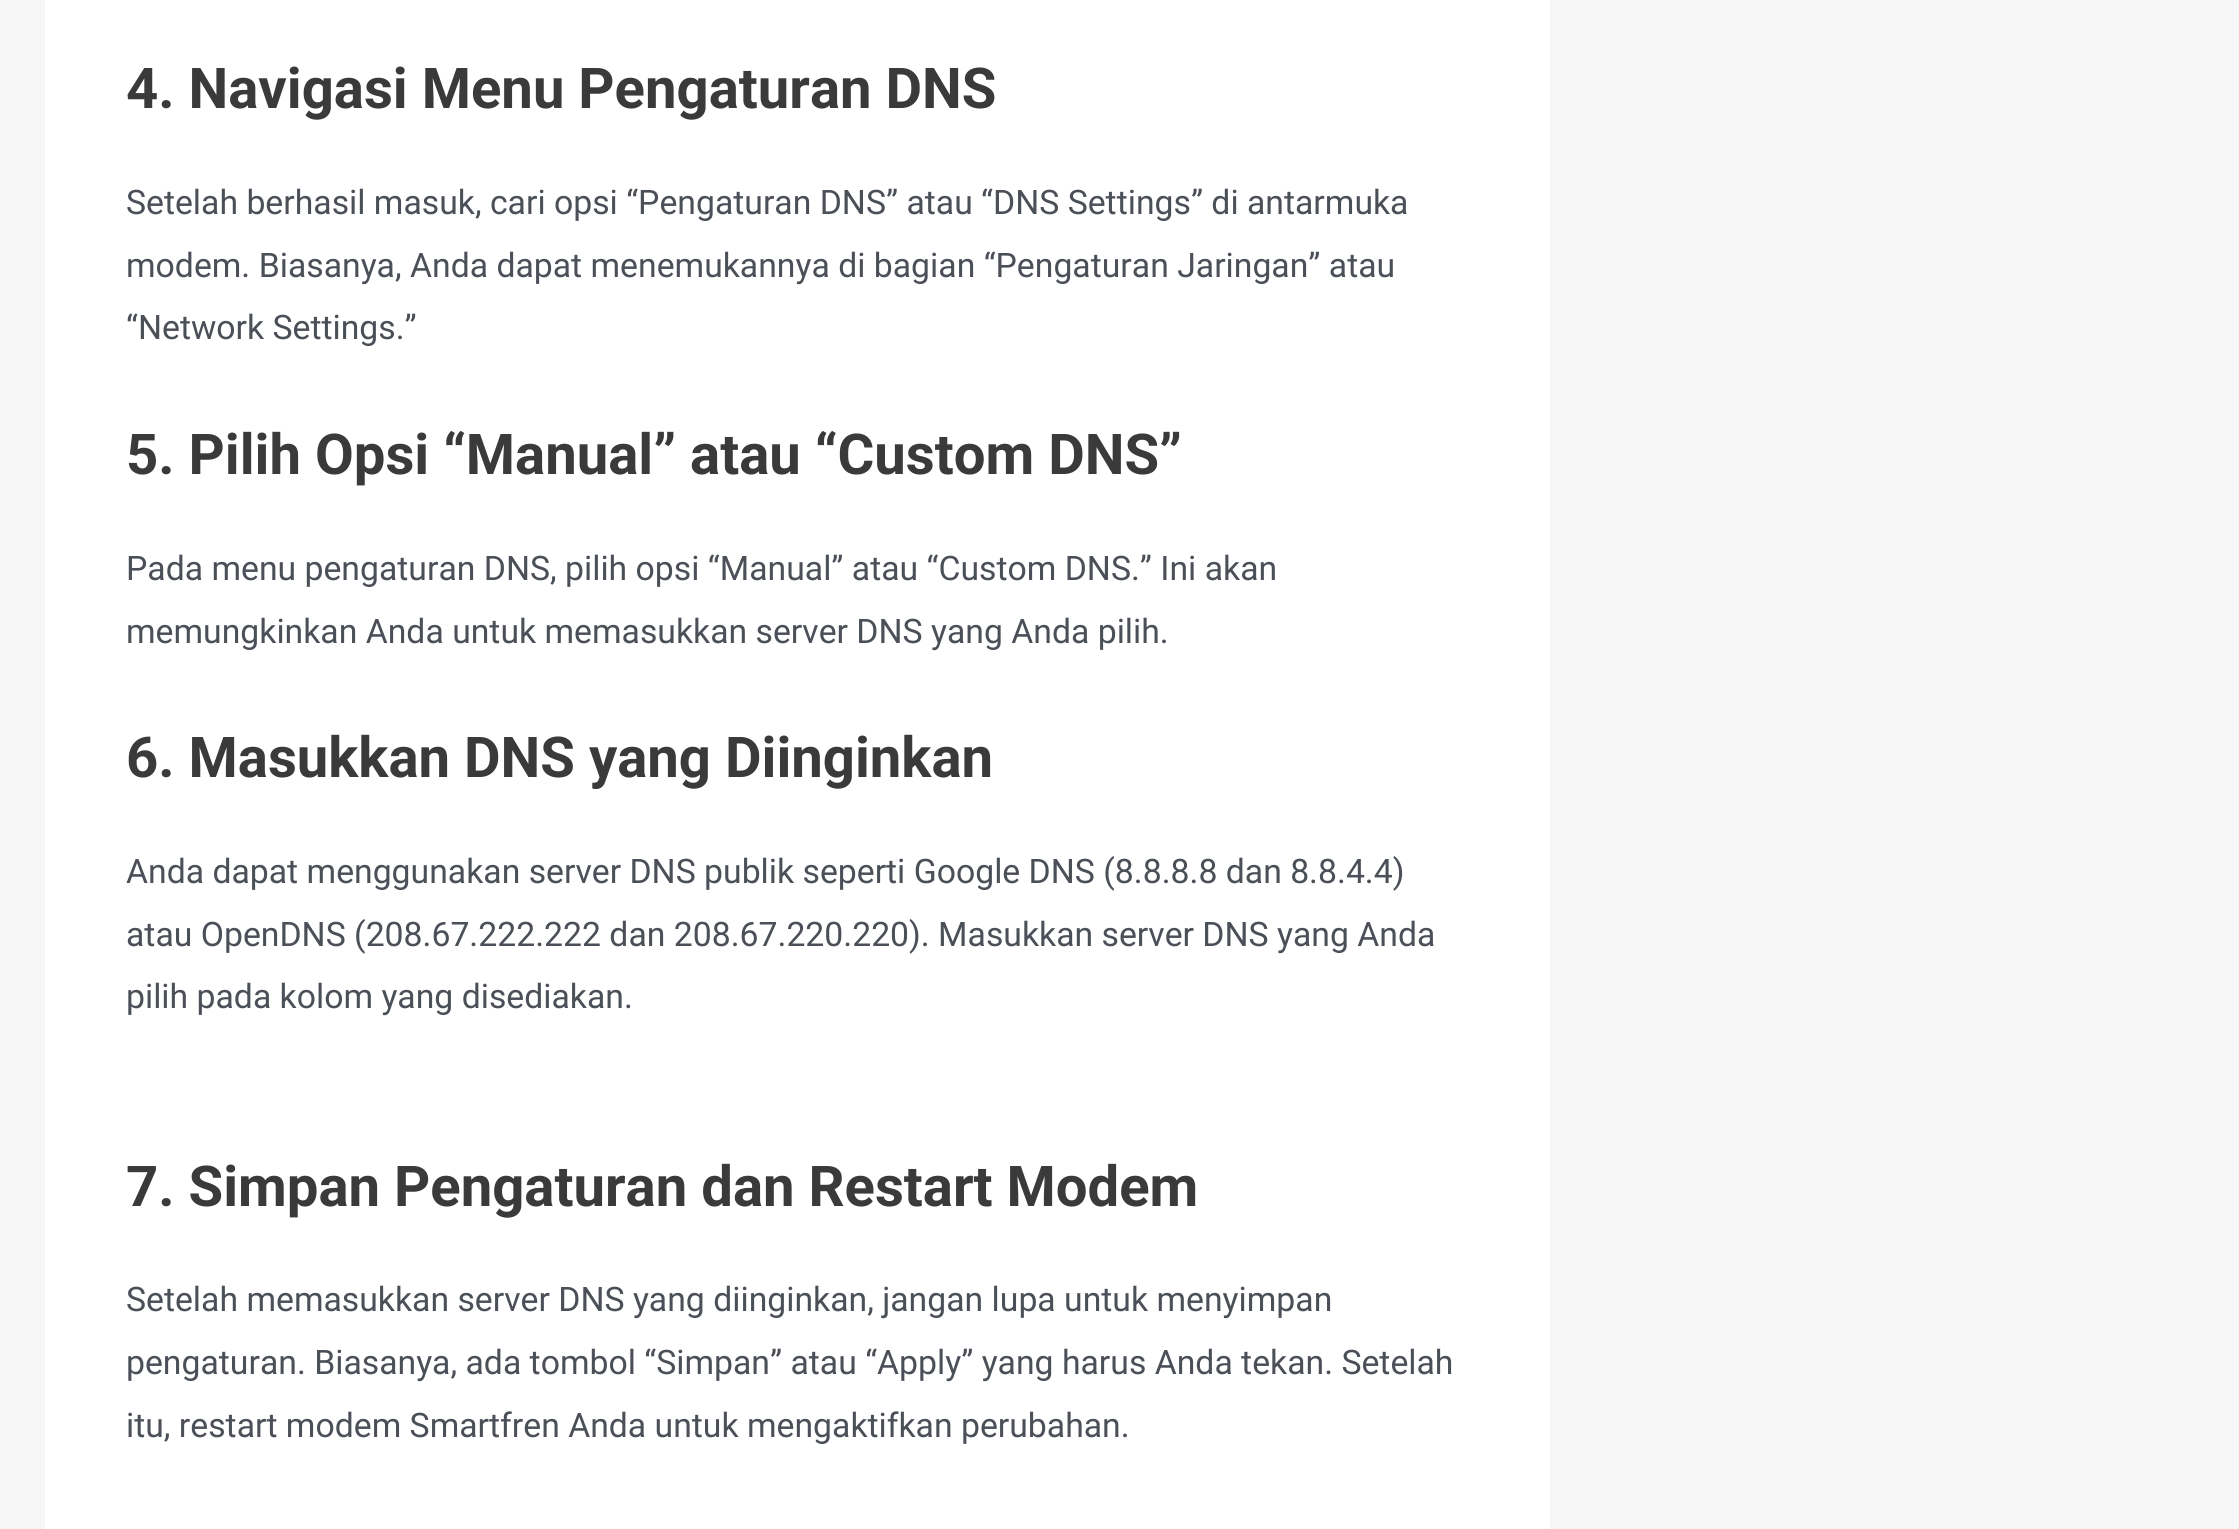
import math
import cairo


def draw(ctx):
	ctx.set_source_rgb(0.961, 0.961, 0.961)
	ctx.paint()
	ctx.set_source_rgb(1, 1, 1)
	ctx.rectangle(45, 0, 1505, 1529)
	ctx.fill()
	ctx.select_font_face('Roboto', cairo.FONT_SLANT_NORMAL, cairo.FONT_WEIGHT_BOLD)
	ctx.set_font_size(56.25)
	ctx.set_source_rgb(0.227, 0.227, 0.227)
	ctx.move_to(126, 108)
	ctx.show_text('4. Navigasi Menu Pengaturan DNS')
	ctx.select_font_face('Roboto')
	ctx.set_font_size(33.75)
	ctx.set_source_rgb(0.294, 0.31, 0.345)
	for x, y, s in [
		(126, 214, 'Setelah berhasil masuk, cari opsi “Pengaturan DNS” atau “DNS Settings” di antarmuka'),
		(126, 277, 'modem. Biasanya, Anda dapat menemukannya di bagian “Pengaturan Jaringan” atau'),
		(126, 339, '“Network Settings.”'),
	]:
		ctx.move_to(x, y)
		ctx.show_text(s)
	ctx.select_font_face('Roboto', cairo.FONT_SLANT_NORMAL, cairo.FONT_WEIGHT_BOLD)
	ctx.set_font_size(56.25)
	ctx.set_source_rgb(0.227, 0.227, 0.227)
	ctx.move_to(126, 474)
	ctx.show_text('5. Pilih Opsi “Manual” atau “Custom DNS”')
	ctx.select_font_face('Roboto')
	ctx.set_font_size(33.75)
	ctx.set_source_rgb(0.294, 0.31, 0.345)
	ctx.move_to(126, 580)
	ctx.show_text('Pada menu pengaturan DNS, pilih opsi “Manual” atau “Custom DNS.” Ini akan')
	ctx.move_to(126, 643)
	ctx.show_text('memungkinkan Anda untuk memasukkan server DNS yang Anda pilih.')
	ctx.select_font_face('Roboto', cairo.FONT_SLANT_NORMAL, cairo.FONT_WEIGHT_BOLD)
	ctx.set_font_size(56.25)
	ctx.set_source_rgb(0.227, 0.227, 0.227)
	ctx.move_to(126, 777)
	ctx.show_text('6. Masukkan DNS yang Diinginkan')
	ctx.select_font_face('Roboto')
	ctx.set_font_size(33.75)
	ctx.set_source_rgb(0.294, 0.31, 0.345)
	for x, y, s in [
		(126, 883, 'Anda dapat menggunakan server DNS publik seperti Google DNS (8.8.8.8 dan 8.8.4.4)'),
		(126, 946, 'atau OpenDNS (208.67.222.222 dan 208.67.220.220). Masukkan server DNS yang Anda'),
		(126, 1008, 'pilih pada kolom yang disediakan.'),
	]:
		ctx.move_to(x, y)
		ctx.show_text(s)
	ctx.select_font_face('Roboto', cairo.FONT_SLANT_NORMAL, cairo.FONT_WEIGHT_BOLD)
	ctx.set_font_size(56.25)
	ctx.set_source_rgb(0.227, 0.227, 0.227)
	ctx.move_to(126, 1206)
	ctx.show_text('7. Simpan Pengaturan dan Restart Modem')
	ctx.select_font_face('Roboto')
	ctx.set_font_size(33.75)
	ctx.set_source_rgb(0.294, 0.31, 0.345)
	for x, y, s in [
		(126, 1311, 'Setelah memasukkan server DNS yang diinginkan, jangan lupa untuk menyimpan'),
		(126, 1374, 'pengaturan. Biasanya, ada tombol “Simpan” atau “Apply” yang harus Anda tekan. Setelah'),
		(126, 1437, 'itu, restart modem Smartfren Anda untuk mengaktifkan perubahan.'),
	]:
		ctx.move_to(x, y)
		ctx.show_text(s)


surface = cairo.ImageSurface(cairo.FORMAT_RGB24, 2239, 1529)
ctx = cairo.Context(surface)
options = cairo.FontOptions()
options.set_hint_metrics(cairo.HINT_METRICS_OFF)
options.set_hint_style(cairo.HINT_STYLE_NONE)
ctx.set_font_options(options)
ctx.set_miter_limit(4)
draw(ctx)
surface.write_to_png('image.png')
